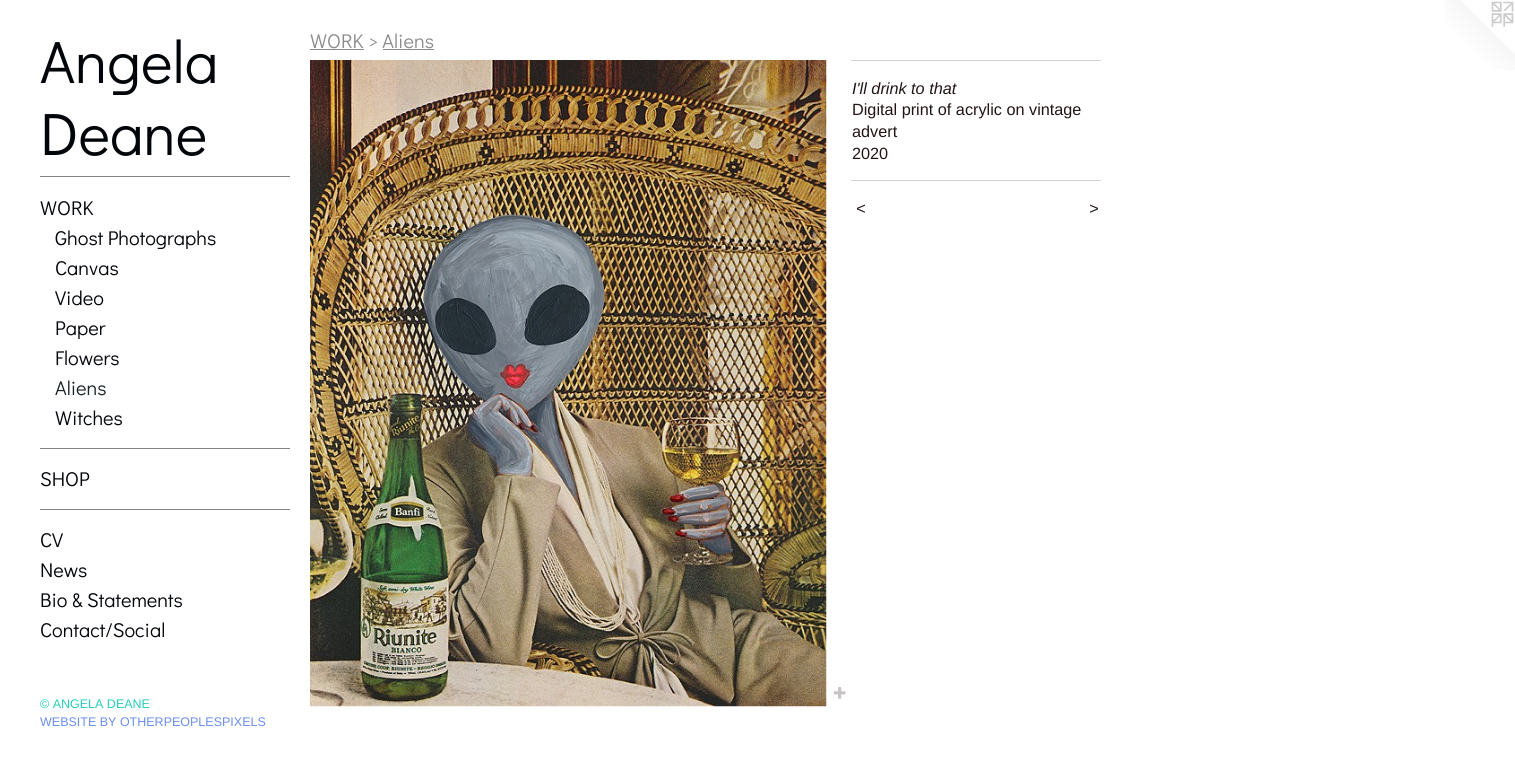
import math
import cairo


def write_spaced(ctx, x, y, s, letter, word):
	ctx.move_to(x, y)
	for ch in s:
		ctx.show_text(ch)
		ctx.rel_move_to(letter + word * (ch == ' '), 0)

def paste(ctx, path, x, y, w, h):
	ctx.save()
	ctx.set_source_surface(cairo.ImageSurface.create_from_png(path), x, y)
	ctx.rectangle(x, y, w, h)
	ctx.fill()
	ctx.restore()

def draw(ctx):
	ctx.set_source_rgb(1, 1, 1)
	ctx.paint()
	ctx.select_font_face('Didact Gothic')
	ctx.set_font_size(60)
	ctx.set_source_rgb(0.004, 0.016, 0.035)
	ctx.move_to(40, 83)
	ctx.show_text('Angela')
	ctx.move_to(40, 155)
	ctx.show_text('Deane')
	ctx.set_source_rgb(0.514, 0.518, 0.518)
	ctx.rectangle(40, 176, 250, 1)
	ctx.fill()
	ctx.set_font_size(20)
	ctx.set_source_rgb(0.004, 0.016, 0.035)
	for x, y, s in [
		(40, 215, 'WORK'),
		(55, 245, 'Ghost Photographs'),
		(55, 275, 'Canvas'),
		(55, 305, 'Video'),
		(55, 335, 'Paper'),
		(55, 365, 'Flowers'),
	]:
		ctx.move_to(x, y)
		ctx.show_text(s)
	ctx.set_source_rgb(0.102, 0.137, 0.157)
	ctx.move_to(55, 395)
	ctx.show_text('Aliens')
	ctx.set_source_rgb(0.004, 0.016, 0.035)
	ctx.move_to(55, 425)
	ctx.show_text('Witches')
	ctx.set_source_rgb(0.514, 0.518, 0.518)
	ctx.rectangle(40, 448, 250, 1)
	ctx.fill()
	ctx.set_source_rgb(0.004, 0.016, 0.035)
	ctx.move_to(40, 486)
	ctx.show_text('SHOP')
	ctx.set_source_rgb(0.514, 0.518, 0.518)
	ctx.rectangle(40, 509, 250, 1)
	ctx.fill()
	ctx.set_source_rgb(0.004, 0.016, 0.035)
	for x, y, s in [
		(40, 547, 'CV'),
		(40, 577, 'News'),
		(40, 607, 'Bio & Statements'),
		(40, 637, 'Contact/Social'),
	]:
		ctx.move_to(x, y)
		ctx.show_text(s)
	ctx.select_font_face('Liberation Sans')
	ctx.set_font_size(12.5)
	ctx.set_source_rgb(0.145, 0.812, 0.737)
	ctx.move_to(40, 708)
	ctx.show_text('© ANGELA DEANE')
	ctx.set_source_rgb(0.416, 0.557, 0.949)
	ctx.move_to(40, 726)
	ctx.show_text('WEBSITE BY OTHERPEOPLESPIXELS')
	ctx.select_font_face('Didact Gothic')
	ctx.set_font_size(20)
	ctx.set_source_rgb(0.549, 0.549, 0.549)
	ctx.move_to(310, 48)
	ctx.show_text('WORK > Aliens')
	ctx.rectangle(310, 49, 54, 1)
	ctx.fill()
	ctx.rectangle(383, 49, 51, 1)
	ctx.fill()
	paste(ctx, 'media/1.png', 310, 60, 517, 647)
	paste(ctx, 'media/2.png', 833, 687, 13, 12)
	ctx.set_source_rgb(0.827, 0.816, 0.816)
	ctx.rectangle(851, 60, 250, 1)
	ctx.fill()
	ctx.select_font_face('Liberation Sans', cairo.FONT_SLANT_ITALIC)
	ctx.set_font_size(16.25)
	ctx.set_source_rgb(0.133, 0.082, 0.082)
	ctx.move_to(852, 94)
	ctx.show_text('I\'ll drink to that')
	ctx.select_font_face('Liberation Sans')
	for x, y, s in [
		(852, 115, 'Digital print of acrylic on vintage'),
		(852, 137, 'advert'),
		(852, 159, '2020'),
	]:
		ctx.move_to(x, y)
		ctx.show_text(s)
	ctx.set_source_rgb(0.827, 0.816, 0.816)
	ctx.rectangle(851, 180, 250, 1)
	ctx.fill()
	ctx.select_font_face('Liberation Sans', cairo.FONT_SLANT_ITALIC)
	ctx.set_source_rgb(0.133, 0.082, 0.082)
	write_spaced(ctx, 856, 214, '<', 1, 0)
	write_spaced(ctx, 1089, 214, '>', 1, 0)
	paste(ctx, 'media/3.png', 1445, 0, 70, 70)


surface = cairo.ImageSurface(cairo.FORMAT_RGB24, 1515, 760)
ctx = cairo.Context(surface)
options = cairo.FontOptions()
options.set_hint_metrics(cairo.HINT_METRICS_OFF)
options.set_hint_style(cairo.HINT_STYLE_NONE)
ctx.set_font_options(options)
ctx.set_miter_limit(4)
draw(ctx)
surface.write_to_png('image.png')
